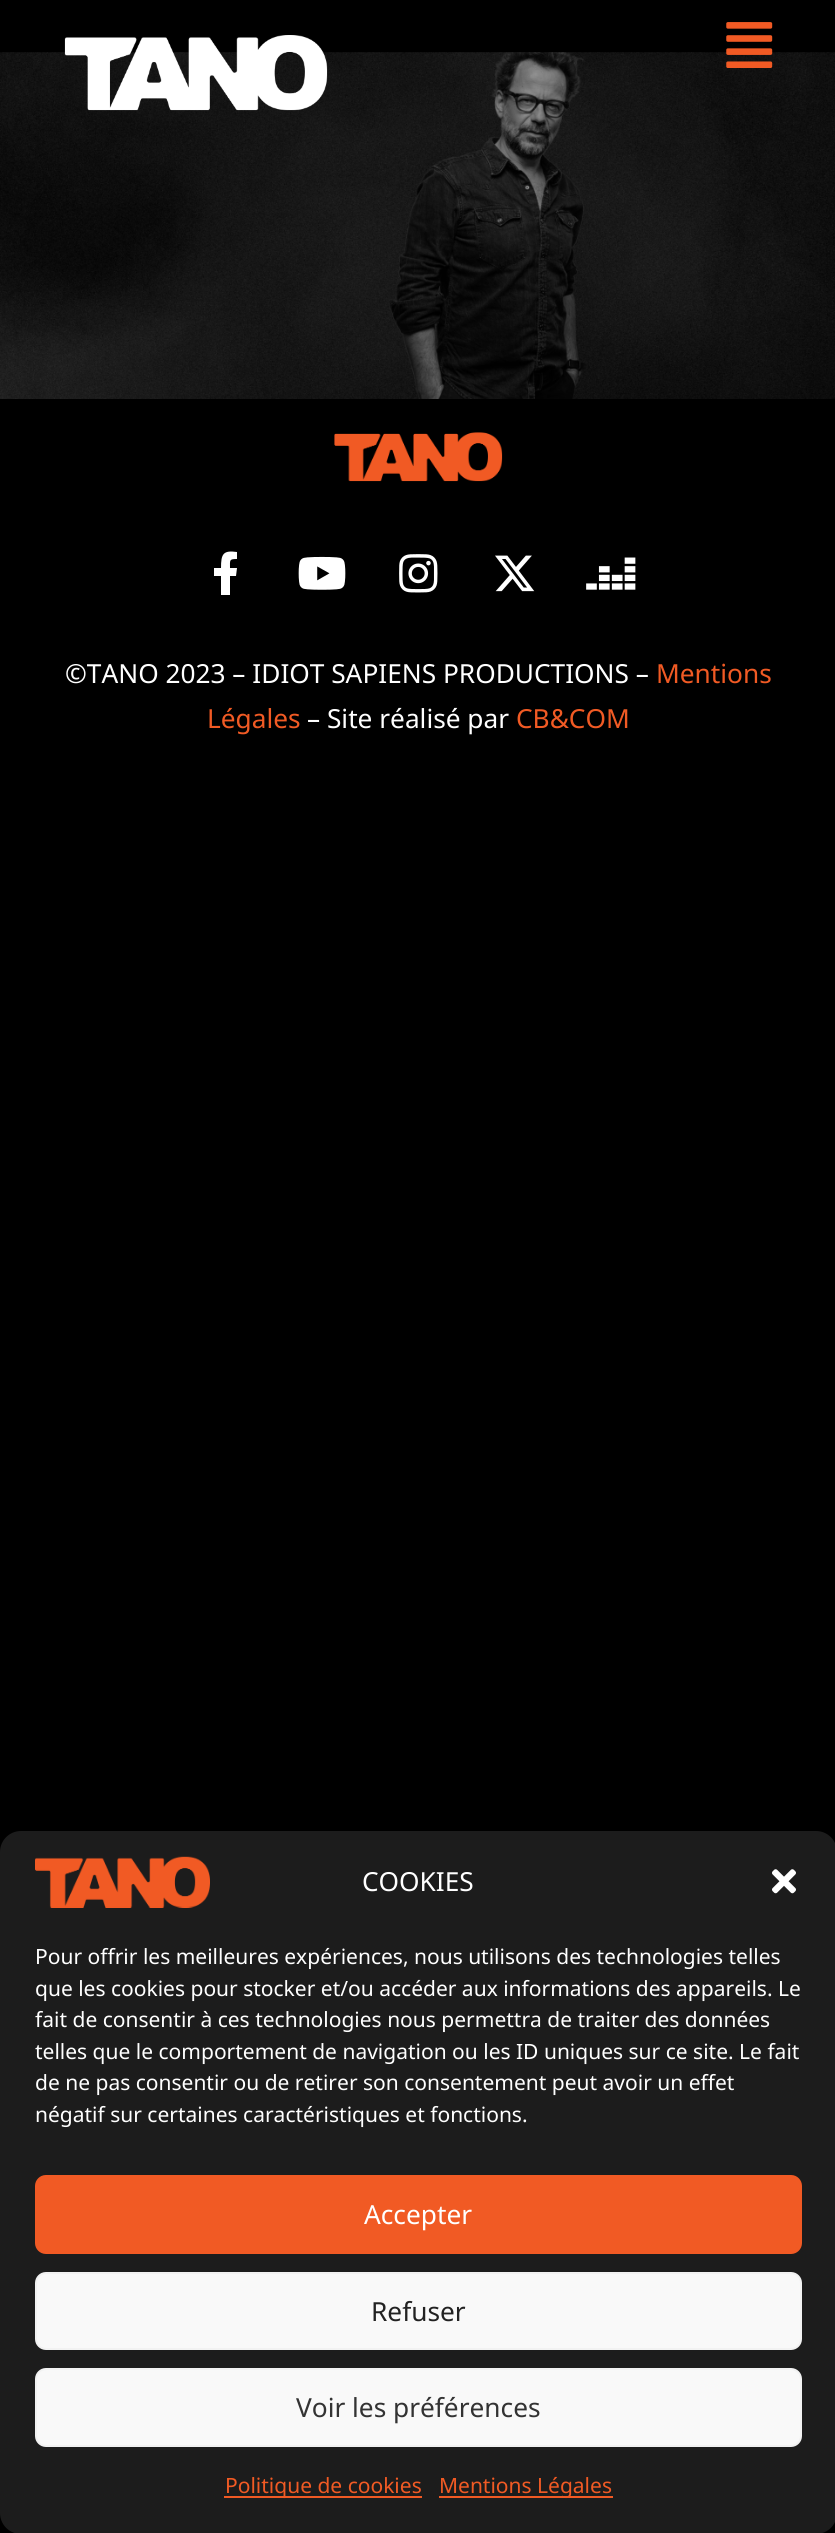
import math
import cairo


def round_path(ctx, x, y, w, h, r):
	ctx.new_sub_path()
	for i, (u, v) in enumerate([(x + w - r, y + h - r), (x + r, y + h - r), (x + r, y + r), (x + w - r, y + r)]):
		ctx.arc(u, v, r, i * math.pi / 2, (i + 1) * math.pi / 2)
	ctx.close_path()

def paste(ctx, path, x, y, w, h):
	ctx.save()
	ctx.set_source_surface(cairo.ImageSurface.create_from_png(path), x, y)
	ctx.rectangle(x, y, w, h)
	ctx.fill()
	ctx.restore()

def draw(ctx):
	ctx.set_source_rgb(0, 0, 0)
	ctx.paint()
	paste(ctx, 'media/3.png', 0, 52, 835, 347)
	paste(ctx, 'media/1.png', 64, 35, 264, 76)
	paste(ctx, 'media/2.png', 726, 22, 47, 46)
	paste(ctx, 'media/4.png', 334, 432, 169, 50)
	ctx.set_source_rgb(1, 1, 1)
	ctx.new_path()
	ctx.move_to(236, 576)
	ctx.line_to(230, 576)
	ctx.line_to(230, 595)
	ctx.line_to(221, 595)
	ctx.line_to(221, 576)
	ctx.line_to(214, 576)
	ctx.line_to(214, 568)
	ctx.line_to(221, 568)
	ctx.curve_to(221, 554, 223, 550, 237, 552)
	ctx.line_to(237, 559)
	ctx.curve_to(229, 559, 230, 560, 230, 568)
	ctx.line_to(237, 568)
	ctx.close_path()
	ctx.fill()
	paste(ctx, 'media/5.png', 298, 556, 48, 34)
	paste(ctx, 'media/6.png', 399, 554, 39, 39)
	paste(ctx, 'media/7.png', 495, 555, 40, 37)
	paste(ctx, 'media/8.png', 586, 557, 50, 33)
	ctx.select_font_face('Noto Sans')
	ctx.set_font_size(26.25)
	ctx.move_to(65, 683)
	ctx.show_text('©TANO 2023 – IDIOT SAPIENS PRODUCTIONS –')
	ctx.set_source_rgb(0.945, 0.353, 0.141)
	ctx.move_to(656, 683)
	ctx.show_text('Mentions')
	ctx.move_to(207, 728)
	ctx.show_text('Légales')
	ctx.set_source_rgb(1, 1, 1)
	ctx.move_to(307, 728)
	ctx.show_text('– Site réalisé par')
	ctx.set_source_rgb(0.945, 0.353, 0.141)
	ctx.move_to(516, 728)
	ctx.show_text('CB&COM')
	ctx.set_source_rgb(0.11, 0.11, 0.11)
	round_path(ctx, 0, 1831, 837, 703, 21)
	ctx.fill()
	paste(ctx, 'media/9.png', 35, 1856, 175, 52)
	ctx.set_source_rgb(1, 1, 1)
	ctx.move_to(362, 1891)
	ctx.show_text('COOKIES')
	paste(ctx, 'media/10.png', 772, 1869, 24, 25)
	ctx.set_font_size(21)
	for x, y, s in [
		(35, 1964, 'Pour offrir les meilleures expériences, nous utilisons des technologies telles'),
		(35, 1996, 'que les cookies pour stocker et/ou accéder aux informations des appareils. Le'),
		(35, 2027, 'fait de consentir à ces technologies nous permettra de traiter des données'),
		(35, 2059, 'telles que le comportement de navigation ou les ID uniques sur ce site. Le fait'),
		(35, 2090, 'de ne pas consentir ou de retirer son consentement peut avoir un effet'),
		(35, 2122, 'négatif sur certaines caractéristiques et fonctions.'),
	]:
		ctx.move_to(x, y)
		ctx.show_text(s)
	ctx.set_source_rgb(0.945, 0.353, 0.141)
	round_path(ctx, 36, 2176, 765, 77, 10)
	ctx.fill_preserve()
	ctx.stroke()
	ctx.set_font_size(26.25)
	ctx.set_source_rgb(1, 1, 1)
	ctx.move_to(364, 2224)
	ctx.show_text('Accepter')
	ctx.set_source_rgb(0.976, 0.976, 0.976)
	round_path(ctx, 36, 2273, 765, 76, 10)
	ctx.fill_preserve()
	ctx.set_source_rgb(0.949, 0.949, 0.949)
	ctx.stroke()
	ctx.set_source_rgb(0.133, 0.133, 0.133)
	ctx.move_to(371, 2321)
	ctx.show_text('Refuser')
	ctx.set_source_rgb(0.976, 0.976, 0.976)
	round_path(ctx, 36, 2369, 765, 77, 10)
	ctx.fill_preserve()
	ctx.set_source_rgb(0.949, 0.949, 0.949)
	ctx.stroke()
	ctx.set_source_rgb(0.2, 0.2, 0.2)
	ctx.move_to(296, 2417)
	ctx.show_text('Voir les préférences')
	ctx.set_source_rgb(0.945, 0.353, 0.141)
	ctx.rectangle(224, 2496, 198, 2)
	ctx.fill()
	ctx.set_font_size(21)
	ctx.move_to(225, 2493)
	ctx.show_text('Politique de cookies')
	ctx.rectangle(439, 2496, 174, 2)
	ctx.fill()
	ctx.move_to(439, 2493)
	ctx.show_text('Mentions Légales')


surface = cairo.ImageSurface(cairo.FORMAT_RGB24, 835, 2533)
ctx = cairo.Context(surface)
options = cairo.FontOptions()
options.set_hint_metrics(cairo.HINT_METRICS_OFF)
options.set_hint_style(cairo.HINT_STYLE_NONE)
ctx.set_font_options(options)
ctx.set_miter_limit(4)
draw(ctx)
surface.write_to_png('image.png')
